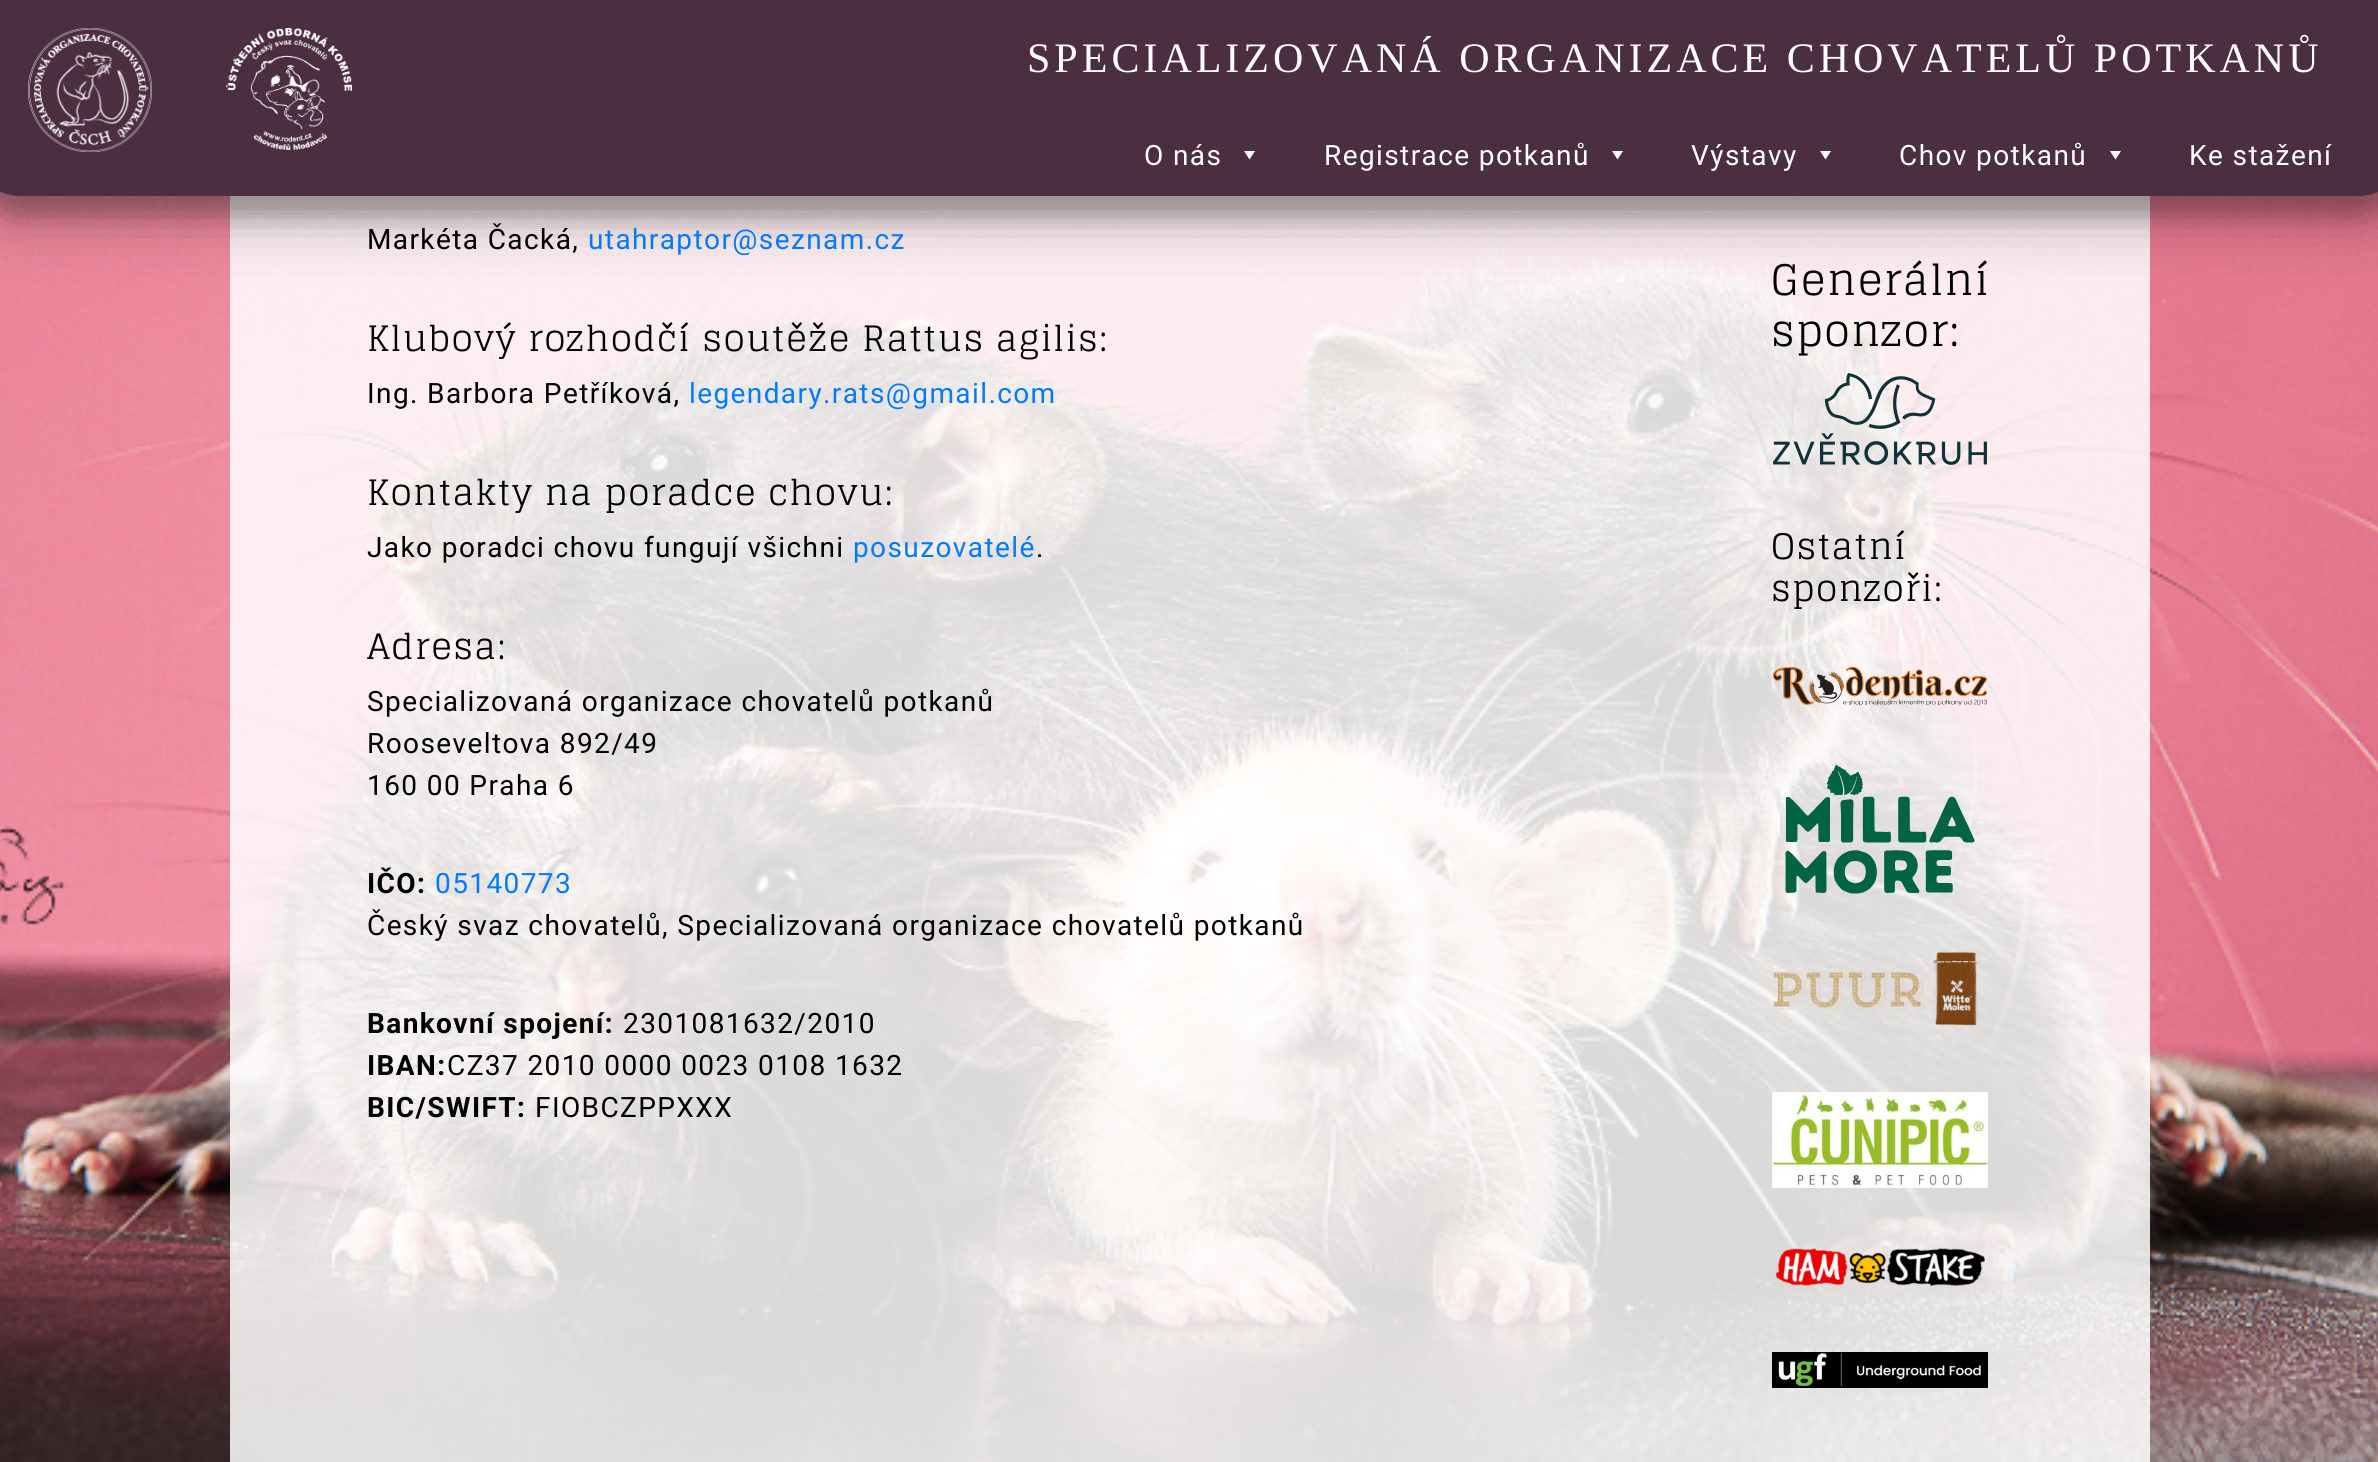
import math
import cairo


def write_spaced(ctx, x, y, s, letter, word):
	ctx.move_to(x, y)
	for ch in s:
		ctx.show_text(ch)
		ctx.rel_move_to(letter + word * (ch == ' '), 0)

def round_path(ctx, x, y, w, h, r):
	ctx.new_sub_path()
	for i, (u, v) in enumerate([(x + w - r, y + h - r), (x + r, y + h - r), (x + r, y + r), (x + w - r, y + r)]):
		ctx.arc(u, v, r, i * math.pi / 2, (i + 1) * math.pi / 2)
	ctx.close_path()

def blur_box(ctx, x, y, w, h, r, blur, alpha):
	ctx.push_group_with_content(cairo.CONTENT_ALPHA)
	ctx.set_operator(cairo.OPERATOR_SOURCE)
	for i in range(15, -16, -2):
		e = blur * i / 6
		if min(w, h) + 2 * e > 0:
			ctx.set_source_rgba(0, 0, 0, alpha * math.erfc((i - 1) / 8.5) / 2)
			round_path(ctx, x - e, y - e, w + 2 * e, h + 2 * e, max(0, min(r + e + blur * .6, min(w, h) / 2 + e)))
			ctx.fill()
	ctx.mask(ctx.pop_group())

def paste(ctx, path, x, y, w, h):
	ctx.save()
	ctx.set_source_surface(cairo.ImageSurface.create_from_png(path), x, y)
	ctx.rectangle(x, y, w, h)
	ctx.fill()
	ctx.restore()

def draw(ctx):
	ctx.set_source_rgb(1, 1, 1)
	ctx.paint()
	paste(ctx, 'media/1.png', 0, 191, 2378, 1271)
	ctx.set_source_rgba(1, 1, 1, 0.85)
	ctx.rectangle(230, 196, 1920, 1266)
	ctx.fill()
	paste(ctx, 'media/4.png', 1792, 196, 2, 3)
	ctx.set_source_rgb(0, 0, 0)
	blur_box(ctx, -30, 20, 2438, 196, 50, 10, 0.22)
	blur_box(ctx, -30, 28, 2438, 196, 50, 28, 0.25)
	ctx.set_source_rgb(0.294, 0.18, 0.251)
	ctx.new_path()
	ctx.move_to(-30, 0)
	ctx.line_to(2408, 0)
	ctx.line_to(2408, 146)
	ctx.curve_to(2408, 173.5, 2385.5, 196, 2358, 196)
	ctx.line_to(20, 196)
	ctx.curve_to(-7.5, 196, -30, 173.5, -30, 146)
	ctx.close_path()
	ctx.fill()
	paste(ctx, 'media/2.png', 28, 28, 124, 124)
	paste(ctx, 'media/3.png', 226, 28, 126, 122)
	ctx.select_font_face('Liberation Serif')
	ctx.set_font_size(42)
	ctx.set_source_rgb(1, 1, 1)
	write_spaced(ctx, 1027, 72, 'SPECIALIZOVANÁ ORGANIZACE CHOVATELŮ POTKANŮ', 4, 0)
	ctx.select_font_face('Roboto')
	ctx.set_font_size(28)
	write_spaced(ctx, 1144, 165, 'O nás', 1.4, 0)
	ctx.new_path()
	ctx.move_to(1255, 151)
	ctx.line_to(1249.5, 159.5)
	ctx.line_to(1244, 151)
	ctx.close_path()
	ctx.fill()
	write_spaced(ctx, 1324, 165, 'Registrace potkanů', 1.4, 0)
	ctx.new_path()
	ctx.move_to(1623, 151)
	ctx.line_to(1617.5, 159.5)
	ctx.line_to(1612, 151)
	ctx.close_path()
	ctx.fill()
	write_spaced(ctx, 1691, 165, 'Výstavy', 1.4, 0)
	ctx.new_path()
	ctx.move_to(1831, 151)
	ctx.line_to(1825.5, 159.5)
	ctx.line_to(1820, 151)
	ctx.close_path()
	ctx.fill()
	write_spaced(ctx, 1899, 165, 'Chov potkanů', 1.4, 0)
	ctx.new_path()
	ctx.move_to(2121, 151)
	ctx.line_to(2115.5, 159.5)
	ctx.line_to(2110, 151)
	ctx.close_path()
	ctx.fill()
	write_spaced(ctx, 2189, 165, 'Ke stažení', 1.4, 0)
	ctx.set_source_rgb(0, 0, 0)
	write_spaced(ctx, 367, 249, 'Markéta Čacká,', 1.4, 0)
	ctx.set_source_rgb(0, 0.482, 1)
	write_spaced(ctx, 588, 249, 'utahraptor@seznam.cz', 1.4, 0)
	ctx.select_font_face('Glegoo')
	ctx.set_font_size(35)
	ctx.set_source_rgb(0, 0, 0)
	write_spaced(ctx, 367, 351, 'Klubový rozhodčí soutěže Rattus agilis:', 1.4, 0)
	ctx.select_font_face('Roboto')
	ctx.set_font_size(28)
	write_spaced(ctx, 367, 403, 'Ing. Barbora Petříková,', 1.4, 0)
	ctx.set_source_rgb(0, 0.482, 1)
	write_spaced(ctx, 689, 403, 'legendary.rats@gmail.com', 1.4, 0)
	ctx.select_font_face('Glegoo')
	ctx.set_font_size(35)
	ctx.set_source_rgb(0, 0, 0)
	write_spaced(ctx, 367, 505, 'Kontakty na poradce chovu:', 1.4, 0)
	ctx.select_font_face('Roboto')
	ctx.set_font_size(28)
	write_spaced(ctx, 367, 557, 'Jako poradci chovu fungují všichni', 1.4, 0)
	ctx.set_source_rgb(0, 0.482, 1)
	write_spaced(ctx, 853, 557, 'posuzovatelé', 1.4, 0)
	ctx.set_source_rgb(0, 0, 0)
	write_spaced(ctx, 1036, 557, '.', 1.4, 0)
	ctx.select_font_face('Glegoo')
	ctx.set_font_size(35)
	write_spaced(ctx, 367, 659, 'Adresa:', 1.4, 0)
	ctx.select_font_face('Roboto')
	ctx.set_font_size(28)
	for x, y, s in [
		(367, 711, 'Specializovaná organizace chovatelů potkanů'),
		(367, 753, 'Rooseveltova 892/49'),
		(367, 795, '160 00 Praha 6'),
	]:
		write_spaced(ctx, x, y, s, 1.4, 0)
	ctx.select_font_face('Roboto', cairo.FONT_SLANT_NORMAL, cairo.FONT_WEIGHT_BOLD)
	write_spaced(ctx, 367, 893, 'IČO:', 1.4, 0)
	ctx.select_font_face('Roboto')
	ctx.set_source_rgb(0, 0.482, 1)
	write_spaced(ctx, 435, 893, '05140773', 1.4, 0)
	ctx.set_source_rgb(0, 0, 0)
	write_spaced(ctx, 367, 935, 'Český svaz chovatelů, Specializovaná organizace chovatelů potkanů', 1.4, 0)
	ctx.select_font_face('Roboto', cairo.FONT_SLANT_NORMAL, cairo.FONT_WEIGHT_BOLD)
	write_spaced(ctx, 367, 1033, 'Bankovní spojení:', 1.4, 0)
	ctx.select_font_face('Roboto')
	write_spaced(ctx, 623, 1033, '2301081632/2010', 1.4, 0)
	ctx.select_font_face('Roboto', cairo.FONT_SLANT_NORMAL, cairo.FONT_WEIGHT_BOLD)
	write_spaced(ctx, 367, 1075, 'IBAN:', 1.4, 0)
	ctx.select_font_face('Roboto')
	write_spaced(ctx, 447, 1075, 'CZ37 2010 0000 0023 0108 1632', 1.4, 0)
	ctx.select_font_face('Roboto', cairo.FONT_SLANT_NORMAL, cairo.FONT_WEIGHT_BOLD)
	write_spaced(ctx, 367, 1117, 'BIC/SWIFT:', 1.4, 0)
	ctx.select_font_face('Roboto')
	write_spaced(ctx, 535, 1117, 'FIOBCZPPXXX', 1.4, 0)
	ctx.select_font_face('Glegoo')
	ctx.set_font_size(42)
	write_spaced(ctx, 1771, 295, 'Generální', 1.4, 0)
	write_spaced(ctx, 1771, 346, 'sponzor:', 1.4, 0)
	paste(ctx, 'media/5.png', 1773, 373, 214, 92)
	ctx.set_font_size(35)
	write_spaced(ctx, 1771, 559, 'Ostatní', 1.4, 0)
	write_spaced(ctx, 1771, 601, 'sponzoři:', 1.4, 0)
	paste(ctx, 'media/6.png', 1773, 666, 214, 40)
	paste(ctx, 'media/7.png', 1785, 764, 190, 130)
	paste(ctx, 'media/8.png', 1773, 951, 214, 75)
	paste(ctx, 'media/9.png', 1772, 1092, 216, 96)
	paste(ctx, 'media/10.png', 1775, 1248, 211, 39)
	paste(ctx, 'media/11.png', 1772, 1352, 216, 36)


surface = cairo.ImageSurface(cairo.FORMAT_RGB24, 2378, 1462)
ctx = cairo.Context(surface)
options = cairo.FontOptions()
options.set_hint_metrics(cairo.HINT_METRICS_OFF)
options.set_hint_style(cairo.HINT_STYLE_NONE)
ctx.set_font_options(options)
ctx.set_miter_limit(4)
draw(ctx)
surface.write_to_png('image.png')
